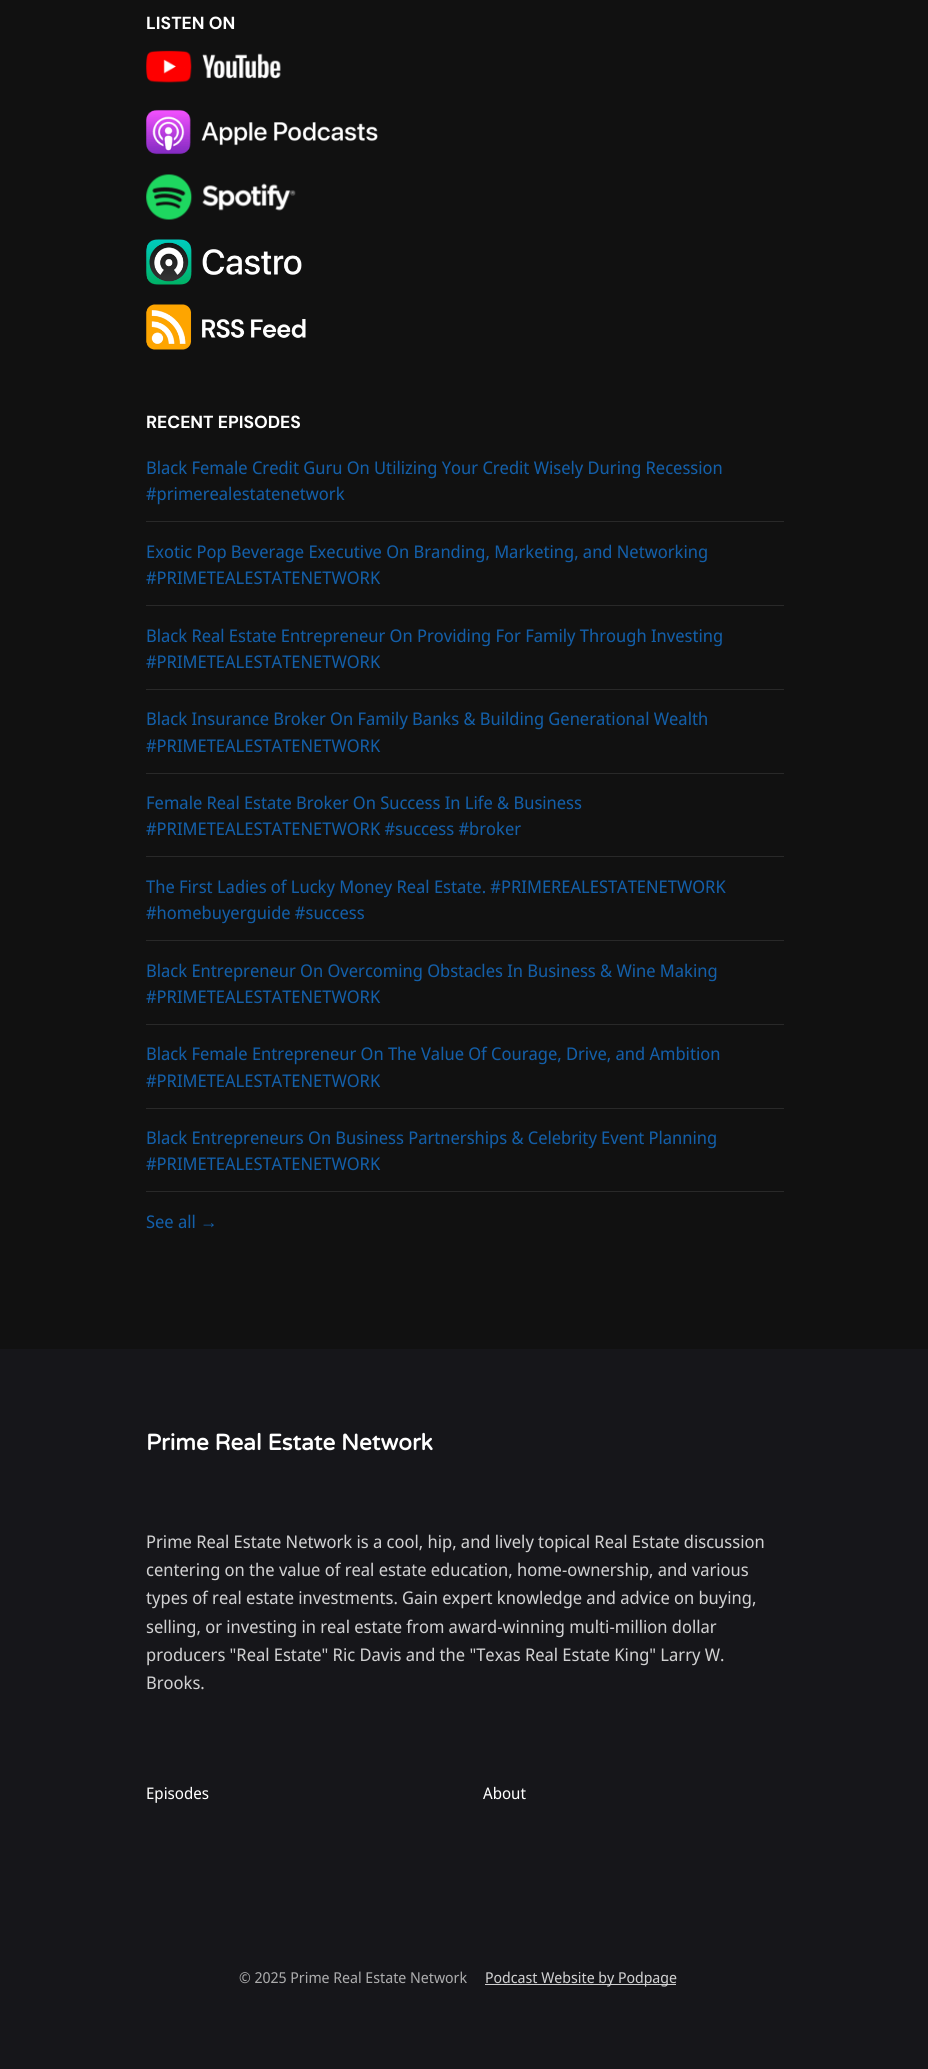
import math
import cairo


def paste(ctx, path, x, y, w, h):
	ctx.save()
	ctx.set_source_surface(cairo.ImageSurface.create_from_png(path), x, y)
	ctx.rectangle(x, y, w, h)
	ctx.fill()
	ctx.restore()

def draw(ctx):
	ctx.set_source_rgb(0.086, 0.086, 0.102)
	ctx.paint()
	ctx.set_source_rgb(0.067, 0.067, 0.067)
	ctx.rectangle(0, 0, 928, 1349)
	ctx.fill()
	ctx.select_font_face('DM Sans', cairo.FONT_SLANT_NORMAL, cairo.FONT_WEIGHT_BOLD)
	ctx.set_font_size(17.5)
	ctx.set_source_rgb(1, 1, 1)
	ctx.move_to(146, 29)
	ctx.show_text('LISTEN ON')
	paste(ctx, 'media/1.png', 146, 50, 135, 33)
	paste(ctx, 'media/2.png', 146, 109, 232, 46)
	paste(ctx, 'media/3.png', 146, 174, 150, 46)
	paste(ctx, 'media/4.png', 146, 239, 156, 46)
	paste(ctx, 'media/5.png', 146, 304, 160, 46)
	ctx.move_to(146, 428)
	ctx.show_text('RECENT EPISODES')
	ctx.set_source_rgb(0.161, 0.161, 0.161)
	ctx.rectangle(146, 521, 638, 1)
	ctx.fill()
	ctx.select_font_face('Noto Sans Display')
	ctx.set_source_rgb(0.075, 0.373, 0.663)
	ctx.move_to(146, 474)
	ctx.show_text('Black Female Credit Guru On Utilizing Your Credit Wisely During Recession')
	ctx.move_to(146, 500)
	ctx.show_text('#primerealestatenetwork')
	ctx.set_source_rgb(0.161, 0.161, 0.161)
	ctx.rectangle(146, 605, 638, 1)
	ctx.fill()
	ctx.set_source_rgb(0.075, 0.373, 0.663)
	ctx.move_to(146, 558)
	ctx.show_text('Exotic Pop Beverage Executive On Branding, Marketing, and Networking')
	ctx.move_to(146, 584)
	ctx.show_text('#PRIMETEALESTATENETWORK')
	ctx.set_source_rgb(0.161, 0.161, 0.161)
	ctx.rectangle(146, 689, 638, 1)
	ctx.fill()
	ctx.set_source_rgb(0.075, 0.373, 0.663)
	ctx.move_to(146, 642)
	ctx.show_text('Black Real Estate Entrepreneur On Providing For Family Through Investing')
	ctx.move_to(146, 668)
	ctx.show_text('#PRIMETEALESTATENETWORK')
	ctx.set_source_rgb(0.161, 0.161, 0.161)
	ctx.rectangle(146, 773, 638, 1)
	ctx.fill()
	ctx.set_source_rgb(0.075, 0.373, 0.663)
	ctx.move_to(146, 725)
	ctx.show_text('Black Insurance Broker On Family Banks & Building Generational Wealth')
	ctx.move_to(146, 752)
	ctx.show_text('#PRIMETEALESTATENETWORK')
	ctx.set_source_rgb(0.161, 0.161, 0.161)
	ctx.rectangle(146, 856, 638, 1)
	ctx.fill()
	ctx.set_source_rgb(0.075, 0.373, 0.663)
	ctx.move_to(146, 809)
	ctx.show_text('Female Real Estate Broker On Success In Life & Business')
	ctx.move_to(146, 835)
	ctx.show_text('#PRIMETEALESTATENETWORK #success #broker')
	ctx.set_source_rgb(0.161, 0.161, 0.161)
	ctx.rectangle(146, 940, 638, 1)
	ctx.fill()
	ctx.set_source_rgb(0.075, 0.373, 0.663)
	ctx.move_to(146, 893)
	ctx.show_text('The First Ladies of Lucky Money Real Estate. #PRIMEREALESTATENETWORK')
	ctx.move_to(146, 919)
	ctx.show_text('#homebuyerguide #success')
	ctx.set_source_rgb(0.161, 0.161, 0.161)
	ctx.rectangle(146, 1024, 638, 1)
	ctx.fill()
	ctx.set_source_rgb(0.075, 0.373, 0.663)
	ctx.move_to(146, 977)
	ctx.show_text('Black Entrepreneur On Overcoming Obstacles In Business & Wine Making')
	ctx.move_to(146, 1003)
	ctx.show_text('#PRIMETEALESTATENETWORK')
	ctx.set_source_rgb(0.161, 0.161, 0.161)
	ctx.rectangle(146, 1108, 638, 1)
	ctx.fill()
	ctx.set_source_rgb(0.075, 0.373, 0.663)
	ctx.move_to(146, 1060)
	ctx.show_text('Black Female Entrepreneur On The Value Of Courage, Drive, and Ambition')
	ctx.move_to(146, 1087)
	ctx.show_text('#PRIMETEALESTATENETWORK')
	ctx.set_source_rgb(0.161, 0.161, 0.161)
	ctx.rectangle(146, 1191, 638, 1)
	ctx.fill()
	ctx.set_source_rgb(0.075, 0.373, 0.663)
	for x, y, s in [
		(146, 1144, 'Black Entrepreneurs On Business Partnerships & Celebrity Event Planning'),
		(146, 1170, '#PRIMETEALESTATENETWORK'),
		(146, 1228, 'See all'),
	]:
		ctx.move_to(x, y)
		ctx.show_text(s)
	ctx.select_font_face('Liberation Serif')
	ctx.move_to(200, 1228)
	ctx.show_text('→')
	ctx.select_font_face('Varela Round', cairo.FONT_SLANT_NORMAL, cairo.FONT_WEIGHT_BOLD)
	ctx.set_font_size(22.5)
	ctx.set_source_rgb(1, 1, 1)
	ctx.move_to(146, 1450)
	ctx.show_text('Prime Real Estate Network')
	ctx.select_font_face('Noto Sans Display')
	ctx.set_font_size(17.5)
	ctx.set_source_rgb(0.816, 0.816, 0.82)
	for x, y, s in [
		(146, 1548, 'Prime Real Estate Network is a cool, hip, and lively topical Real Estate discussion'),
		(146, 1576, 'centering on the value of real estate education, home-ownership, and various'),
		(146, 1604, 'types of real estate investments. Gain expert knowledge and advice on buying,'),
		(146, 1633, 'selling, or investing in real estate from award-winning multi-million dollar'),
		(146, 1661, 'producers "Real Estate" Ric Davis and the "Texas Real Estate King" Larry W.'),
		(146, 1689, 'Brooks.'),
	]:
		ctx.move_to(x, y)
		ctx.show_text(s)
	ctx.set_font_size(16)
	ctx.set_source_rgb(1, 1, 1)
	ctx.move_to(146, 1799)
	ctx.show_text('Episodes')
	ctx.move_to(483, 1799)
	ctx.show_text('About')
	ctx.set_font_size(15)
	ctx.set_source_rgb(0.671, 0.671, 0.675)
	ctx.move_to(239, 1983)
	ctx.show_text('© 2025 Prime Real Estate Network')
	ctx.set_source_rgb(0.816, 0.816, 0.82)
	ctx.rectangle(485, 1984, 191, 1)
	ctx.fill()
	ctx.move_to(485, 1983)
	ctx.show_text('Podcast Website by Podpage')


surface = cairo.ImageSurface(cairo.FORMAT_RGB24, 928, 2069)
ctx = cairo.Context(surface)
options = cairo.FontOptions()
options.set_hint_metrics(cairo.HINT_METRICS_OFF)
options.set_hint_style(cairo.HINT_STYLE_NONE)
ctx.set_font_options(options)
ctx.set_miter_limit(4)
draw(ctx)
surface.write_to_png('image.png')
